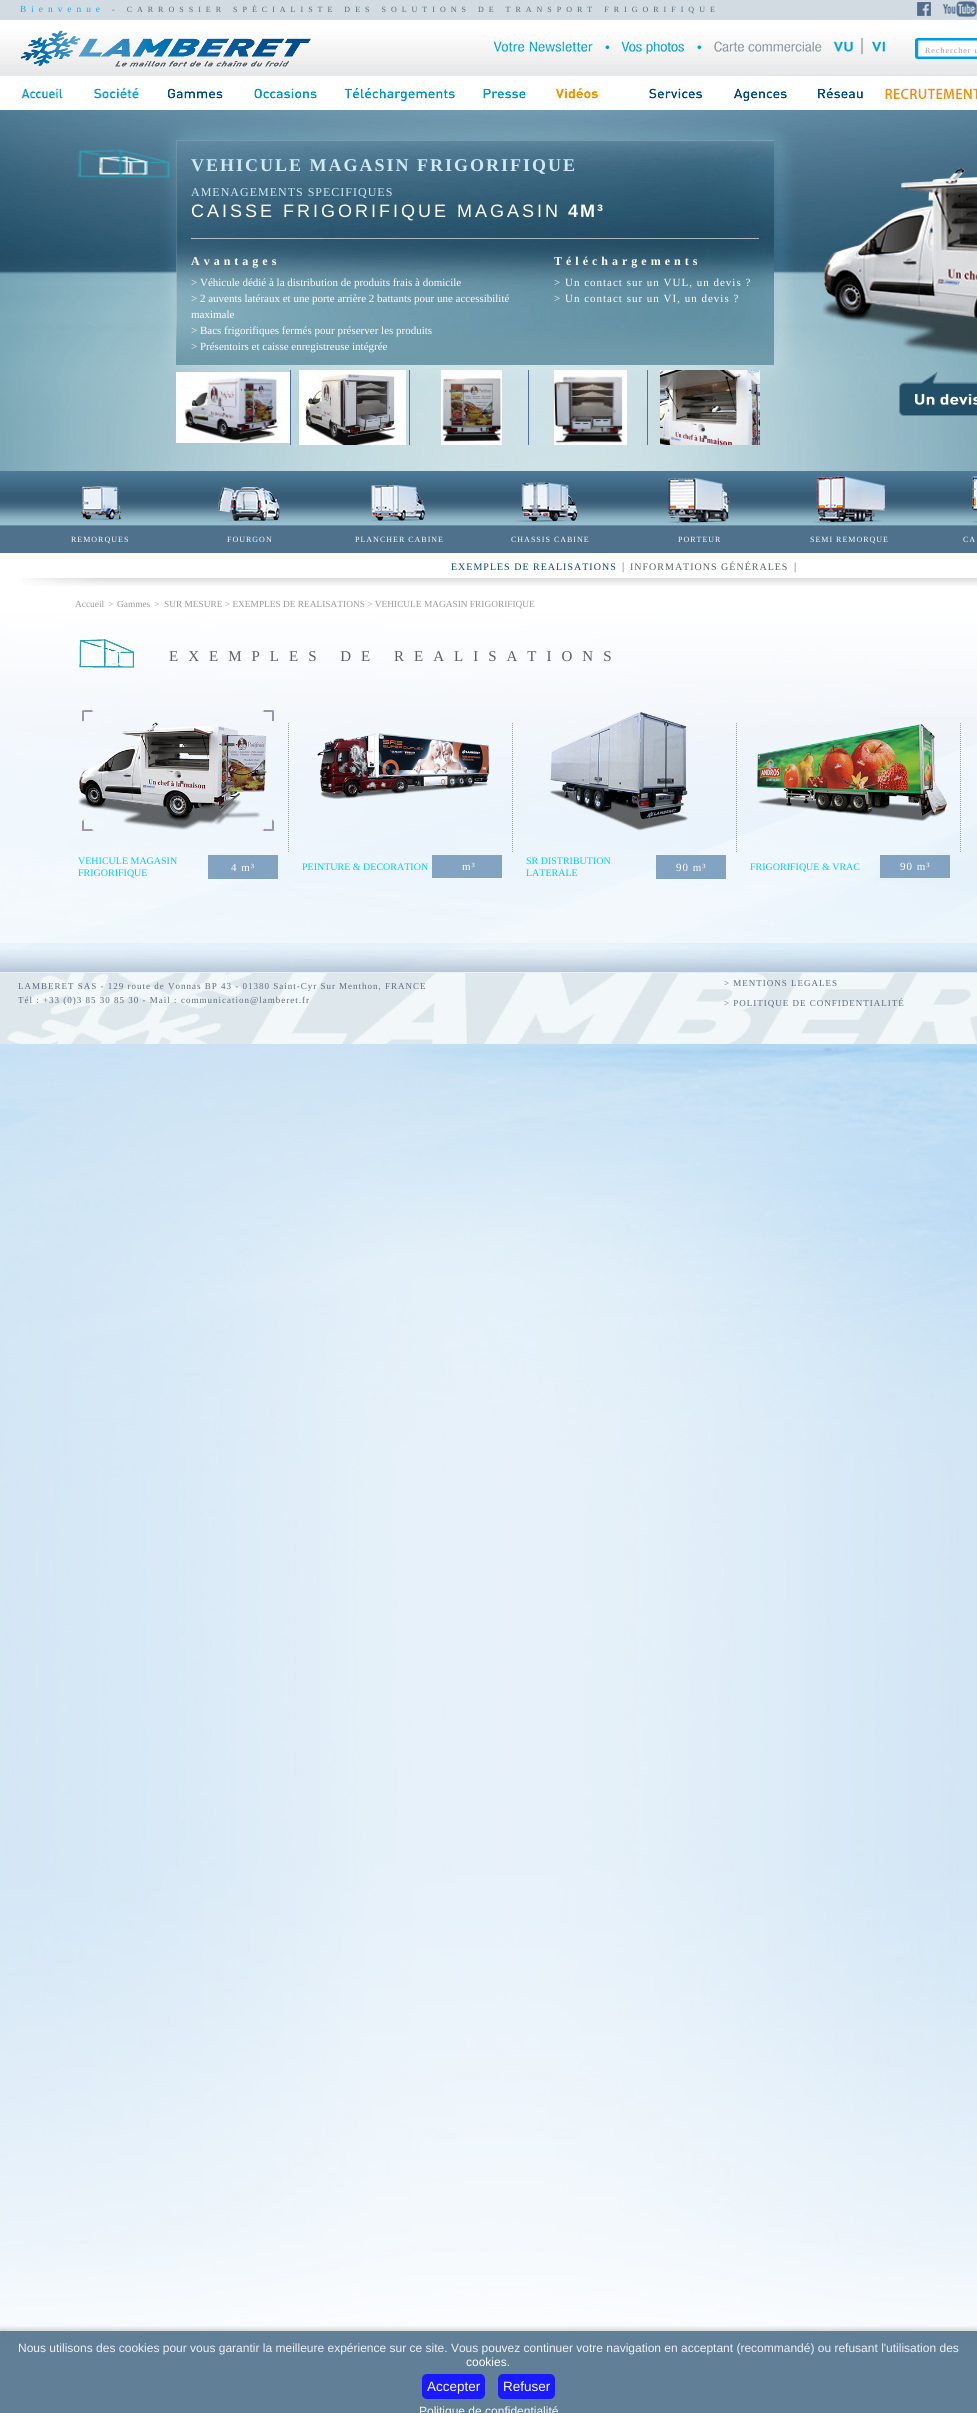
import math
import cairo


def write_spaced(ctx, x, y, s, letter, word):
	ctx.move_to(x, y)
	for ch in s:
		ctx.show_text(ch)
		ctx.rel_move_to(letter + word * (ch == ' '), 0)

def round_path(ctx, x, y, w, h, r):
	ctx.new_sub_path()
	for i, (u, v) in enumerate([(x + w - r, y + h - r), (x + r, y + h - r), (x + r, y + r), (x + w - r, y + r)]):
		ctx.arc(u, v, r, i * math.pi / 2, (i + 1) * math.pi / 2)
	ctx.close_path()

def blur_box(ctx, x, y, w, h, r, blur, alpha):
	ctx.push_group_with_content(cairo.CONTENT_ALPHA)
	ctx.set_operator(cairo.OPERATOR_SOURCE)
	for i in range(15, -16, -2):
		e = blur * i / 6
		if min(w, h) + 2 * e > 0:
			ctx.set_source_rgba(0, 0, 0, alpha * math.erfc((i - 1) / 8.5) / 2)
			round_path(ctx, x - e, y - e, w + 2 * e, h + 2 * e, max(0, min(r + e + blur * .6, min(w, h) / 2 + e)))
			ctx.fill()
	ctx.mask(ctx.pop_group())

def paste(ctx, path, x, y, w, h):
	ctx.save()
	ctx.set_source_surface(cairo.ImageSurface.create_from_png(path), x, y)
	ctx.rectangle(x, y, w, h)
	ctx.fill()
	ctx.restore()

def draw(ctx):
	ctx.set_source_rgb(1, 1, 1)
	ctx.paint()
	paste(ctx, 'media/1.png', 0, 611, 977, 1743)
	paste(ctx, 'media/2.png', 0, 0, 977, 76)
	ctx.select_font_face('Liberation Serif')
	ctx.set_font_size(9.35)
	ctx.set_source_rgb(0, 0.718, 0.91)
	write_spaced(ctx, 20, 12, 'Bienvenue', 5, 0)
	ctx.set_font_size(8)
	ctx.set_source_rgb(0.306, 0.416, 0.49)
	write_spaced(ctx, 112, 12, '- CARROSSIER SPÉCIALISTE DES SOLUTIONS DE TRANSPORT FRIGORIFIQUE', 5, 0)
	paste(ctx, 'media/3.png', 917, 2, 14, 14)
	paste(ctx, 'media/4.png', 942, 1, 35, 16)
	paste(ctx, 'media/5.png', 20, 30, 291, 37)
	paste(ctx, 'media/6.png', 494, 41, 99, 11)
	paste(ctx, 'media/7.png', 605, 45, 5, 5)
	paste(ctx, 'media/8.png', 621, 41, 63, 13)
	paste(ctx, 'media/7.png', 697, 45, 5, 5)
	paste(ctx, 'media/9.png', 714, 41, 108, 11)
	paste(ctx, 'media/10.png', 833, 41, 20, 11)
	paste(ctx, 'media/11.png', 861, 38, 2, 16)
	paste(ctx, 'media/12.png', 872, 41, 13, 11)
	paste(ctx, 'media/13.png', 915, 38, 62, 21)
	ctx.set_source_rgb(0.6, 0.6, 0.6)
	write_spaced(ctx, 925, 53, 'Rechercher u', 1, 0)
	paste(ctx, 'media/14.png', 20, 87, 43, 13)
	paste(ctx, 'media/15.png', 94, 85, 45, 15)
	paste(ctx, 'media/16.png', 163, 84, 60, 16)
	paste(ctx, 'media/17.png', 254, 84, 64, 16)
	paste(ctx, 'media/18.png', 344, 84, 114, 24)
	paste(ctx, 'media/19.png', 483, 85, 43, 15)
	paste(ctx, 'media/20.png', 556, 84, 47, 16)
	paste(ctx, 'media/21.png', 647, 85, 55, 15)
	paste(ctx, 'media/22.png', 728, 85, 62, 17)
	paste(ctx, 'media/23.png', 818, 87, 45, 12)
	paste(ctx, 'media/24.png', 885, 87, 92, 13)
	paste(ctx, 'media/25.png', 0, 110, 977, 361)
	paste(ctx, 'media/26.png', 77, 149, 93, 29)
	paste(ctx, 'media/27.png', 176, 140, 598, 225)
	ctx.select_font_face('Liberation Serif', cairo.FONT_SLANT_NORMAL, cairo.FONT_WEIGHT_BOLD)
	ctx.set_font_size(18)
	ctx.set_source_rgb(0.808, 0.914, 0.969)
	write_spaced(ctx, 191, 171, 'VEHICULE MAGASIN FRIGORIFIQUE', 2, 0)
	ctx.select_font_face('Liberation Serif')
	ctx.set_font_size(12)
	write_spaced(ctx, 191, 196, 'AMENAGEMENTS SPECIFIQUES', 1, 0)
	ctx.select_font_face('Liberation Sans')
	ctx.set_font_size(18)
	ctx.set_source_rgb(1, 1, 1)
	write_spaced(ctx, 191, 217, 'CAISSE FRIGORIFIQUE MAGASIN', 3, 0)
	ctx.select_font_face('Liberation Sans', cairo.FONT_SLANT_NORMAL, cairo.FONT_WEIGHT_BOLD)
	write_spaced(ctx, 568, 217, '4M³', 2, 0)
	ctx.set_source_rgba(1, 1, 1, 0.6)
	ctx.rectangle(191, 238, 568, 1)
	ctx.fill()
	ctx.select_font_face('Liberation Serif', cairo.FONT_SLANT_NORMAL, cairo.FONT_WEIGHT_BOLD)
	ctx.set_font_size(12)
	ctx.set_source_rgb(1, 1, 1)
	write_spaced(ctx, 191, 265, 'Avantages', 4, 0)
	ctx.select_font_face('Liberation Serif')
	ctx.set_font_size(11)
	for x, y, s in [
		(191, 286, '> Véhicule dédié à la distribution de produits frais à domicile'),
		(191, 302, '> 2 auvents latéraux et une porte arrière 2 battants pour une accessibilité'),
		(191, 318, 'maximale'),
		(191, 334, '> Bacs frigorifiques fermés pour préserver les produits'),
		(191, 350, '> Présentoirs et caisse enregistreuse intégrée'),
	]:
		ctx.move_to(x, y)
		ctx.show_text(s)
	ctx.select_font_face('Liberation Serif', cairo.FONT_SLANT_NORMAL, cairo.FONT_WEIGHT_BOLD)
	ctx.set_font_size(12)
	write_spaced(ctx, 554, 265, 'Téléchargements', 4, 0)
	ctx.select_font_face('Liberation Serif')
	ctx.set_font_size(11)
	write_spaced(ctx, 554, 286, '> Un contact sur un VUL, un devis ?', 1, 0)
	write_spaced(ctx, 554, 302, '> Un contact sur un VI, un devis ?', 1, 0)
	paste(ctx, 'media/28.png', 822, 167, 155, 190)
	paste(ctx, 'media/29.png', 899, 372, 78, 44)
	paste(ctx, 'media/30.png', 176, 372, 114, 71)
	ctx.set_source_rgb(0.314, 0.443, 0.639)
	ctx.rectangle(290, 370, 1, 75)
	ctx.fill()
	paste(ctx, 'media/31.png', 299, 370, 107, 75)
	ctx.rectangle(409, 370, 1, 75)
	ctx.fill()
	paste(ctx, 'media/32.png', 441, 370, 61, 75)
	ctx.rectangle(528, 370, 1, 75)
	ctx.fill()
	paste(ctx, 'media/33.png', 554, 370, 73, 75)
	ctx.rectangle(647, 370, 1, 75)
	ctx.fill()
	paste(ctx, 'media/34.png', 660, 370, 100, 75)
	paste(ctx, 'media/35.png', 0, 471, 25, 55)
	paste(ctx, 'media/36.png', 25, 471, 150, 55)
	paste(ctx, 'media/37.png', 81, 486, 41, 34)
	paste(ctx, 'media/36.png', 175, 471, 150, 55)
	paste(ctx, 'media/38.png', 218, 487, 62, 35)
	paste(ctx, 'media/36.png', 325, 471, 150, 55)
	paste(ctx, 'media/39.png', 371, 485, 54, 36)
	paste(ctx, 'media/36.png', 475, 471, 150, 55)
	paste(ctx, 'media/40.png', 515, 482, 62, 40)
	paste(ctx, 'media/36.png', 625, 471, 150, 55)
	paste(ctx, 'media/41.png', 667, 478, 63, 45)
	paste(ctx, 'media/36.png', 775, 471, 150, 55)
	paste(ctx, 'media/42.png', 813, 476, 72, 47)
	paste(ctx, 'media/43.png', 925, 471, 52, 55)
	paste(ctx, 'media/44.png', 972, 476, 5, 47)
	ctx.set_source_rgb(0.314, 0.443, 0.549)
	ctx.rectangle(0, 526, 977, 27)
	ctx.fill()
	ctx.set_font_size(8)
	ctx.set_source_rgb(1, 1, 1)
	for x, y, s in [
		(71, 542, 'REMORQUES'),
		(227, 542, 'FOURGON'),
		(355, 542, 'PLANCHER CABINE'),
		(511, 542, 'CHASSIS CABINE'),
		(678, 542, 'PORTEUR'),
		(810, 542, 'SEMI REMORQUE'),
		(963, 542, 'CA'),
	]:
		write_spaced(ctx, x, y, s, 1, 0)
	paste(ctx, 'media/45.png', 0, 553, 977, 390)
	ctx.set_font_size(10)
	ctx.set_source_rgb(0, 0.278, 0.518)
	write_spaced(ctx, 451, 570, 'EXEMPLES DE REALISATIONS', 1, 0)
	ctx.set_font_size(11)
	ctx.set_source_rgb(0.349, 0.38, 0.384)
	ctx.move_to(622, 570)
	ctx.show_text('|')
	ctx.set_font_size(10)
	write_spaced(ctx, 630, 570, 'INFORMATIONS GÉNÉRALES', 1, 0)
	ctx.set_font_size(11)
	ctx.move_to(794, 570)
	ctx.show_text('|')
	paste(ctx, 'media/46.png', 22, 578, 78, 8)
	paste(ctx, 'media/47.png', 100, 578, 877, 8)
	ctx.set_font_size(9.35)
	ctx.set_source_rgb(0.6, 0.6, 0.6)
	for x, y, s in [
		(75, 607, 'Accueil'),
		(108, 607, '>'),
		(117, 607, 'Gammes'),
		(154, 607, '>'),
		(164, 607, 'SUR MESURE > EXEMPLES DE REALISATIONS > VEHICULE MAGASIN FRIGORIFIQUE'),
	]:
		ctx.move_to(x, y)
		ctx.show_text(s)
	paste(ctx, 'media/48.png', 79, 639, 55, 29)
	ctx.set_font_size(15)
	ctx.set_source_rgb(0.349, 0.38, 0.384)
	write_spaced(ctx, 169, 661, 'EXEMPLES DE REALISATIONS', 10, 0)
	paste(ctx, 'media/49.png', 81, 710, 194, 121)
	paste(ctx, 'media/50.png', 78, 722, 189, 108)
	paste(ctx, 'media/51.png', 288, 723, 1, 129)
	ctx.set_font_size(10)
	ctx.set_source_rgb(0, 0.8, 1)
	ctx.move_to(78, 864)
	ctx.show_text('VEHICULE MAGASIN')
	ctx.move_to(78, 876)
	ctx.show_text('FRIGORIFIQUE')
	ctx.set_source_rgb(0.51, 0.639, 0.761)
	ctx.rectangle(208, 855, 70, 24)
	ctx.fill()
	ctx.set_font_size(11)
	ctx.set_source_rgb(1, 1, 1)
	write_spaced(ctx, 231, 871, '4 m³', 1, 0)
	paste(ctx, 'media/52.png', 317, 733, 173, 66)
	paste(ctx, 'media/53.png', 512, 723, 1, 129)
	ctx.set_font_size(10)
	ctx.set_source_rgb(0, 0.8, 1)
	ctx.move_to(302, 870)
	ctx.show_text('PEINTURE & DECORATION')
	ctx.set_source_rgb(0.51, 0.639, 0.761)
	ctx.rectangle(432, 855, 70, 23)
	ctx.fill()
	ctx.set_font_size(11)
	ctx.set_source_rgb(1, 1, 1)
	write_spaced(ctx, 462, 870, 'm³', 1, 0)
	paste(ctx, 'media/54.png', 550, 712, 138, 119)
	paste(ctx, 'media/55.png', 736, 723, 1, 129)
	ctx.set_font_size(10)
	ctx.set_source_rgb(0, 0.8, 1)
	ctx.move_to(526, 864)
	ctx.show_text('SR DISTRIBUTION')
	ctx.move_to(526, 876)
	ctx.show_text('LATERALE')
	ctx.set_source_rgb(0.51, 0.639, 0.761)
	ctx.rectangle(656, 855, 70, 24)
	ctx.fill()
	ctx.set_font_size(11)
	ctx.set_source_rgb(1, 1, 1)
	write_spaced(ctx, 676, 871, '90 m³', 1, 0)
	paste(ctx, 'media/56.png', 757, 724, 190, 97)
	paste(ctx, 'media/57.png', 960, 723, 1, 129)
	ctx.set_font_size(10)
	ctx.set_source_rgb(0, 0.8, 1)
	ctx.move_to(750, 870)
	ctx.show_text('FRIGORIFIQUE & VRAC')
	ctx.set_source_rgb(0.51, 0.639, 0.761)
	ctx.rectangle(880, 855, 70, 23)
	ctx.fill()
	ctx.set_font_size(11)
	ctx.set_source_rgb(1, 1, 1)
	write_spaced(ctx, 900, 870, '90 m³', 1, 0)
	ctx.set_source_rgba(1, 1, 1, 0.64)
	ctx.rectangle(0, 943, 977, 30)
	ctx.fill()
	paste(ctx, 'media/58.png', 0, 950, 977, 22)
	paste(ctx, 'media/59.png', 0, 973, 977, 71)
	ctx.set_font_size(9)
	ctx.set_source_rgb(0.357, 0.416, 0.494)
	for x, y, s in [
		(18, 989, 'LAMBERET SAS - 129 route de Vonnas BP 43 - 01380 Saint-Cyr Sur'),
		(339, 989, 'Menthon, FRANCE'),
		(18, 1003, 'Tél : +33 (0)3 85 30 85 30 - Mail :'),
		(181, 1003, 'communication@lamberet.fr'),
		(724, 986, '> MENTIONS LEGALES'),
		(724, 1006, '> POLITIQUE DE CONFIDENTIALITÉ'),
	]:
		write_spaced(ctx, x, y, s, 1, 0)
	ctx.save()
	ctx.rectangle(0, 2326, 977, 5)
	ctx.clip()
	ctx.set_source_rgb(0, 0, 0)
	blur_box(ctx, 0, 2329, 977, 82, 0, 2.5, 0.18)
	ctx.restore()
	ctx.set_source_rgba(0.314, 0.443, 0.549, 0.9)
	ctx.rectangle(0, 2331, 977, 82)
	ctx.fill()
	ctx.select_font_face('Liberation Sans')
	ctx.set_font_size(12)
	ctx.set_source_rgb(0.937, 0.949, 0.961)
	ctx.move_to(18, 2352)
	ctx.show_text('Nous utilisons des cookies pour vous garantir la meilleure expérience sur ce site. Vous pouvez continuer votre navigation en acceptant (recommandé) ou refusant l\'utilisation des')
	ctx.set_source_rgb(1, 1, 1)
	ctx.move_to(466, 2366)
	ctx.show_text('cookies.')
	ctx.set_source_rgb(0.102, 0.102, 1)
	round_path(ctx, 422, 2374, 63, 25, 5)
	ctx.fill()
	ctx.set_font_size(13.5)
	ctx.set_source_rgb(1, 1, 1)
	ctx.move_to(427, 2391)
	ctx.show_text('Accepter')
	ctx.set_source_rgb(0.102, 0.102, 1)
	round_path(ctx, 498, 2374, 57, 25, 5)
	ctx.fill()
	ctx.set_source_rgb(1, 1, 1)
	ctx.move_to(503, 2391)
	ctx.show_text('Refuser')
	ctx.set_font_size(12)
	ctx.move_to(419, 2415)
	ctx.show_text('Politique de confidentialité')


surface = cairo.ImageSurface(cairo.FORMAT_RGB24, 977, 2413)
ctx = cairo.Context(surface)
options = cairo.FontOptions()
options.set_hint_metrics(cairo.HINT_METRICS_OFF)
options.set_hint_style(cairo.HINT_STYLE_NONE)
ctx.set_font_options(options)
ctx.set_miter_limit(4)
draw(ctx)
surface.write_to_png('image.png')
